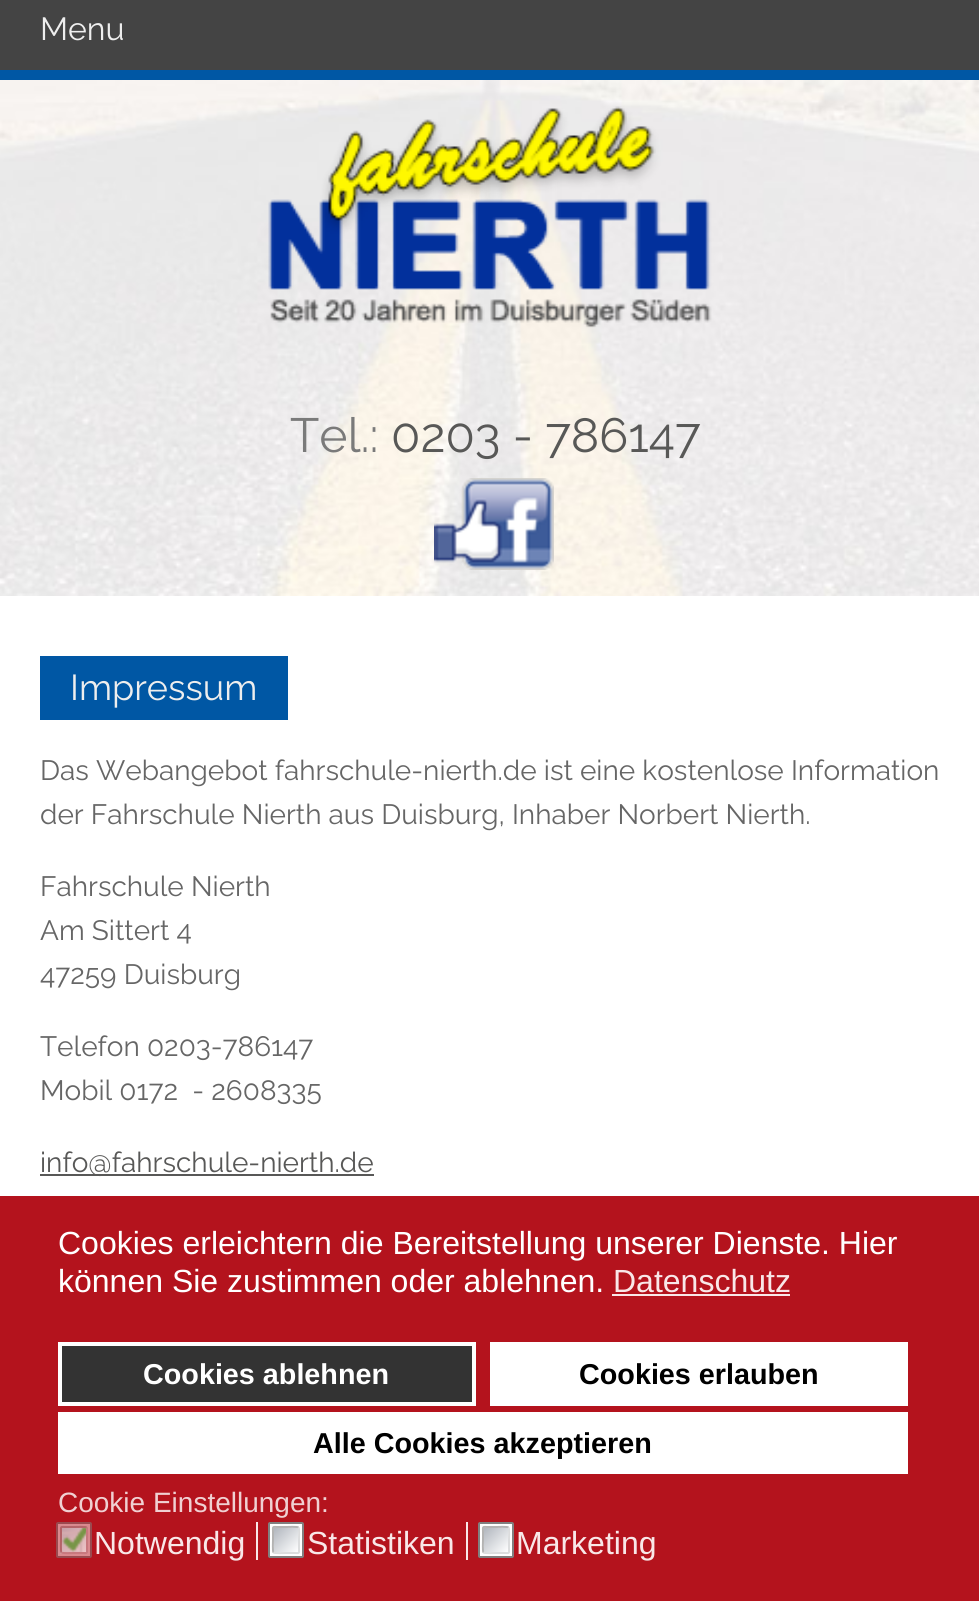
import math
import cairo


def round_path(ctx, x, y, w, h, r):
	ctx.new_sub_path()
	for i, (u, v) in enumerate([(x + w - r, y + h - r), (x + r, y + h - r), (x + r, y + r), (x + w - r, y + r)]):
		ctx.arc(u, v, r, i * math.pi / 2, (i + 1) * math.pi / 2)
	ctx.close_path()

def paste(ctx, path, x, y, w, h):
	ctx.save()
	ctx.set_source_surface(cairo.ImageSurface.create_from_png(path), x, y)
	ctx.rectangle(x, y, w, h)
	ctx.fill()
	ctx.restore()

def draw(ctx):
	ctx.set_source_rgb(0, 0.341, 0.643)
	ctx.paint()
	ctx.set_source_rgb(0.267, 0.267, 0.267)
	ctx.rectangle(0, 0, 979, 70)
	ctx.fill()
	ctx.select_font_face('Raleway Thin')
	ctx.set_font_size(32)
	ctx.set_source_rgb(0.933, 0.933, 0.933)
	ctx.move_to(40, 40)
	ctx.show_text('Menu')
	paste(ctx, 'media/1.png', 0, 80, 979, 516)
	paste(ctx, 'media/2.png', 268, 106, 444, 222)
	ctx.set_font_size(48)
	ctx.set_source_rgb(0.478, 0.478, 0.478)
	ctx.move_to(290, 452)
	ctx.show_text('Tel.:')
	ctx.set_source_rgb(0.345, 0.345, 0.341)
	ctx.move_to(391, 452)
	ctx.show_text('0203 - 786147')
	paste(ctx, 'media/3.png', 434, 478, 120, 92)
	ctx.set_source_rgb(1, 1, 1)
	ctx.rectangle(0, 596, 979, 600)
	ctx.fill()
	ctx.set_source_rgb(0, 0.341, 0.643)
	ctx.rectangle(40, 656, 248, 64)
	ctx.fill()
	ctx.set_font_size(36)
	ctx.set_source_rgb(0.933, 0.933, 0.933)
	ctx.move_to(70, 700)
	ctx.show_text('Impressum')
	ctx.set_font_size(28)
	ctx.set_source_rgb(0.4, 0.4, 0.4)
	for x, y, s in [
		(40, 780, 'Das Webangebot fahrschule-nierth.de ist eine kostenlose Information'),
		(40, 824, 'der Fahrschule Nierth aus Duisburg, Inhaber Norbert Nierth.'),
		(40, 896, 'Fahrschule Nierth'),
		(40, 940, 'Am Sittert 4'),
		(40, 984, '47259 Duisburg'),
		(40, 1056, 'Telefon 0203-786147'),
		(40, 1100, 'Mobil 0172  - 2608335'),
	]:
		ctx.move_to(x, y)
		ctx.show_text(s)
	ctx.set_source_rgb(0.345, 0.345, 0.341)
	ctx.rectangle(40, 1174, 268, 2)
	ctx.fill()
	ctx.move_to(40, 1172)
	ctx.show_text('info@fahrschule-nierth.de')
	ctx.rectangle(308, 1174, 66, 2)
	ctx.fill()
	ctx.set_source_rgb(0.706, 0.075, 0.114)
	ctx.rectangle(0, 1196, 979, 405)
	ctx.fill()
	ctx.select_font_face('Liberation Sans')
	ctx.set_font_size(32)
	ctx.set_source_rgb(1, 1, 1)
	ctx.move_to(58, 1254)
	ctx.show_text('Cookies erleichtern die Bereitstellung unserer Dienste. Hier')
	ctx.move_to(58, 1292)
	ctx.show_text('können Sie zustimmen oder ablehnen.')
	ctx.set_source_rgb(0.973, 0.906, 0.91)
	ctx.move_to(613, 1292)
	ctx.show_text('Datenschutz')
	ctx.rectangle(612, 1294, 178, 2)
	ctx.fill()
	ctx.set_source_rgb(0.2, 0.2, 0.2)
	ctx.rectangle(60, 1344, 414, 60)
	ctx.fill_preserve()
	ctx.set_source_rgb(1, 1, 1)
	ctx.set_line_width(4)
	ctx.stroke()
	ctx.select_font_face('Liberation Sans', cairo.FONT_SLANT_NORMAL, cairo.FONT_WEIGHT_BOLD)
	ctx.set_font_size(28.75)
	ctx.move_to(143, 1384)
	ctx.show_text('Cookies ablehnen')
	ctx.rectangle(490, 1342, 418, 64)
	ctx.fill()
	ctx.set_source_rgb(0, 0, 0)
	ctx.move_to(579, 1384)
	ctx.show_text('Cookies erlauben')
	ctx.set_source_rgb(1, 1, 1)
	ctx.rectangle(58, 1412, 850, 62)
	ctx.fill()
	ctx.set_source_rgb(0, 0, 0)
	ctx.move_to(313, 1453)
	ctx.show_text('Alle Cookies akzeptieren')
	ctx.select_font_face('Liberation Sans')
	ctx.set_font_size(28)
	ctx.set_source_rgb(0.941, 0.816, 0.824)
	ctx.move_to(58, 1512)
	ctx.show_text('Cookie Einstellungen:')
	ctx.set_source_rgb(0.855, 0.537, 0.557)
	round_path(ctx, 57, 1523, 34, 34, 1)
	ctx.fill_preserve()
	ctx.set_source_rgb(0.604, 0.29, 0.31)
	ctx.set_line_width(2)
	ctx.stroke()
	paste(ctx, 'media/4.png', 60, 1526, 28, 28)
	ctx.new_path()
	ctx.move_to(86.5, 1527.5)
	ctx.curve_to(87.5, 1528, 87, 1538.5, 87, 1540)
	ctx.line_to(87, 1548)
	ctx.curve_to(87, 1554, 88, 1553, 82, 1553)
	ctx.line_to(74, 1553)
	ctx.curve_to(72.5, 1553, 62, 1553.5, 61.5, 1552.5)
	ctx.set_source_rgb(0.784, 0.471, 0.494)
	ctx.stroke()
	ctx.new_path()
	ctx.move_to(61.5, 1552.5)
	ctx.curve_to(60.5, 1552, 61, 1541.5, 61, 1540)
	ctx.line_to(61, 1532)
	ctx.curve_to(61, 1526, 60, 1527, 66, 1527)
	ctx.line_to(74, 1527)
	ctx.curve_to(75.5, 1527, 86, 1526.5, 86.5, 1527.5)
	ctx.set_source_rgb(0.706, 0.388, 0.408)
	ctx.stroke()
	ctx.set_source_rgb(0.973, 0.906, 0.91)
	ctx.rectangle(256, 1522, 2, 38)
	ctx.fill()
	ctx.set_font_size(32)
	ctx.move_to(94, 1554)
	ctx.show_text('Notwendig')
	ctx.set_source_rgb(1, 1, 1)
	round_path(ctx, 269, 1523, 34, 34, 1)
	ctx.fill_preserve()
	ctx.set_source_rgb(0.502, 0.502, 0.502)
	ctx.stroke()
	gradient = cairo.LinearGradient(274, 1528, 298, 1552)
	gradient.add_color_stop_rgba(0, 0.694, 0.714, 0.745, 1)
	gradient.add_color_stop_rgba(1, 1, 1, 1, 1)
	ctx.set_source(gradient)
	ctx.rectangle(274, 1528, 24, 24)
	ctx.fill()
	ctx.new_path()
	ctx.move_to(298.5, 1527.5)
	ctx.curve_to(299.5, 1528, 299, 1538.5, 299, 1540)
	ctx.line_to(299, 1548)
	ctx.curve_to(299, 1554, 300, 1553, 294, 1553)
	ctx.line_to(286, 1553)
	ctx.curve_to(284.5, 1553, 274, 1553.5, 273.5, 1552.5)
	ctx.set_source_rgb(0.863, 0.867, 0.871)
	ctx.stroke()
	ctx.new_path()
	ctx.move_to(273.5, 1552.5)
	ctx.curve_to(272.5, 1552, 273, 1541.5, 273, 1540)
	ctx.line_to(273, 1532)
	ctx.curve_to(273, 1526, 272, 1527, 278, 1527)
	ctx.line_to(286, 1527)
	ctx.curve_to(287.5, 1527, 298, 1526.5, 298.5, 1527.5)
	ctx.set_source_rgb(0.702, 0.702, 0.702)
	ctx.stroke()
	ctx.set_source_rgb(0.973, 0.906, 0.91)
	ctx.rectangle(466, 1522, 2, 38)
	ctx.fill()
	ctx.move_to(307, 1554)
	ctx.show_text('Statistiken')
	ctx.set_source_rgb(1, 1, 1)
	round_path(ctx, 479, 1523, 34, 34, 1)
	ctx.fill_preserve()
	ctx.set_source_rgb(0.502, 0.502, 0.502)
	ctx.stroke()
	gradient = cairo.LinearGradient(484, 1528, 508, 1552)
	gradient.add_color_stop_rgba(0, 0.694, 0.714, 0.745, 1)
	gradient.add_color_stop_rgba(1, 1, 1, 1, 1)
	ctx.set_source(gradient)
	ctx.rectangle(484, 1528, 24, 24)
	ctx.fill()
	ctx.new_path()
	ctx.move_to(508.5, 1527.5)
	ctx.curve_to(509.5, 1528, 509, 1538.5, 509, 1540)
	ctx.line_to(509, 1548)
	ctx.curve_to(509, 1554, 510, 1553, 504, 1553)
	ctx.line_to(496, 1553)
	ctx.curve_to(494.5, 1553, 484, 1553.5, 483.5, 1552.5)
	ctx.set_source_rgb(0.863, 0.867, 0.871)
	ctx.stroke()
	ctx.new_path()
	ctx.move_to(483.5, 1552.5)
	ctx.curve_to(482.5, 1552, 483, 1541.5, 483, 1540)
	ctx.line_to(483, 1532)
	ctx.curve_to(483, 1526, 482, 1527, 488, 1527)
	ctx.line_to(496, 1527)
	ctx.curve_to(497.5, 1527, 508, 1526.5, 508.5, 1527.5)
	ctx.set_source_rgb(0.702, 0.702, 0.702)
	ctx.stroke()
	ctx.set_source_rgb(0.973, 0.906, 0.91)
	ctx.move_to(516, 1554)
	ctx.show_text('Marketing')


surface = cairo.ImageSurface(cairo.FORMAT_RGB24, 979, 1601)
ctx = cairo.Context(surface)
options = cairo.FontOptions()
options.set_hint_metrics(cairo.HINT_METRICS_OFF)
options.set_hint_style(cairo.HINT_STYLE_NONE)
ctx.set_font_options(options)
ctx.set_miter_limit(4)
draw(ctx)
surface.write_to_png('image.png')
